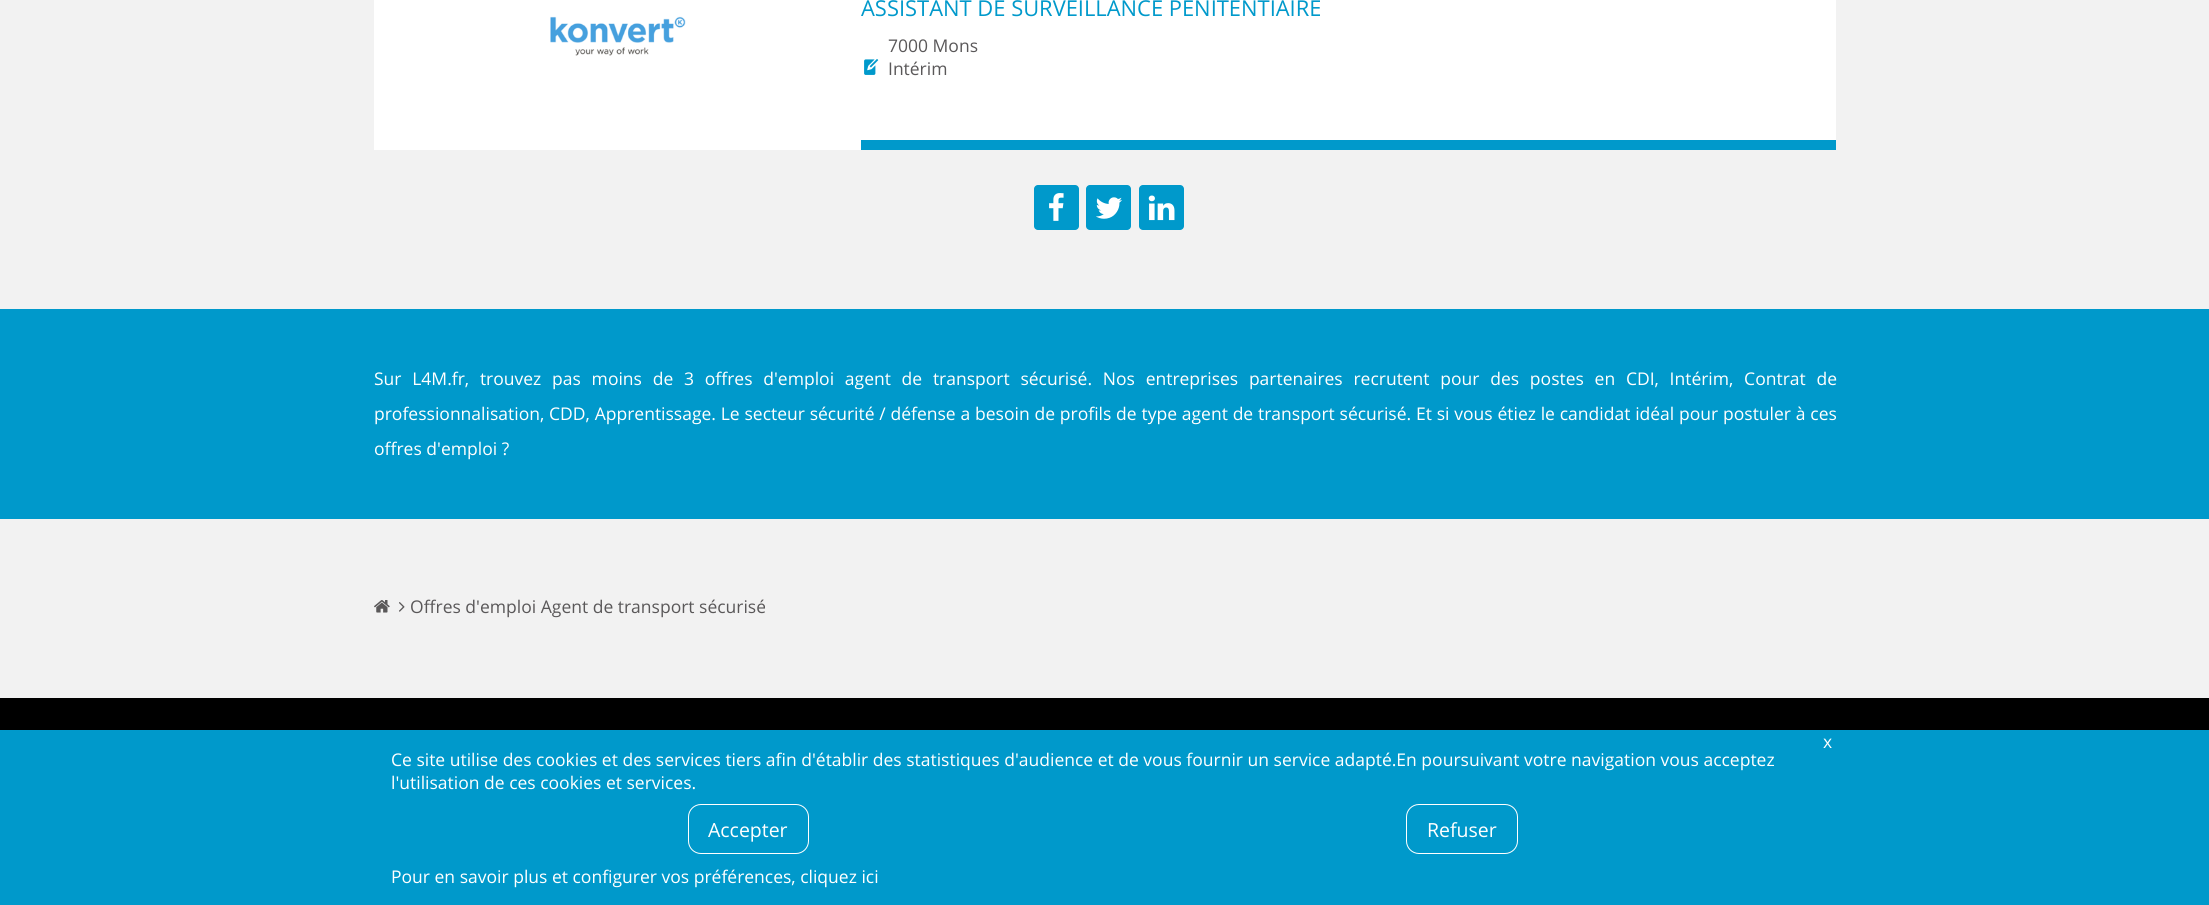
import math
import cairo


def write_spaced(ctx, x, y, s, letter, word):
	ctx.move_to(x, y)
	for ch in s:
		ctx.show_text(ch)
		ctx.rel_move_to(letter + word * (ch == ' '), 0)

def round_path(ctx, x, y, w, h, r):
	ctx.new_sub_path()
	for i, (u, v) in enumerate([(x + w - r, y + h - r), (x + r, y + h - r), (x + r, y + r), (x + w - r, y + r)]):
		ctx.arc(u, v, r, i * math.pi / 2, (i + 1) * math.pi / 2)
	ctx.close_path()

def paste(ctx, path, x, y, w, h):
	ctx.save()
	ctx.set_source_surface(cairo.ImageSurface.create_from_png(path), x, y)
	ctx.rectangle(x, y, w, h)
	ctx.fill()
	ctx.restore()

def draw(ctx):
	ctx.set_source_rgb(0.949, 0.949, 0.949)
	ctx.paint()
	ctx.set_source_rgb(1, 1, 1)
	ctx.rectangle(374, 0, 1462, 150)
	ctx.fill()
	paste(ctx, 'media/1.png', 550, 16, 136, 40)
	ctx.select_font_face('Open Sans')
	ctx.set_font_size(21.9)
	ctx.set_source_rgb(0, 0.6, 0.796)
	ctx.move_to(861, 16)
	ctx.show_text('ASSISTANT DE SURVEILLANCE PÉNITENTIAIRE')
	ctx.set_font_size(17.5)
	ctx.set_source_rgb(0.353, 0.345, 0.349)
	ctx.move_to(888, 52)
	ctx.show_text('7000 Mons')
	paste(ctx, 'media/2.png', 864, 59, 15, 16)
	ctx.move_to(888, 75)
	ctx.show_text('Intérim')
	ctx.set_source_rgb(0, 0.6, 0.796)
	ctx.rectangle(861, 140, 975, 10)
	ctx.fill()
	round_path(ctx, 1034, 185, 45, 45, 4)
	ctx.fill()
	paste(ctx, 'media/3.png', 1049, 193, 15, 28)
	round_path(ctx, 1086, 185, 45, 45, 4)
	ctx.fill()
	paste(ctx, 'media/4.png', 1096, 197, 26, 22)
	round_path(ctx, 1139, 185, 45, 45, 4)
	ctx.fill()
	paste(ctx, 'media/5.png', 1148, 195, 27, 26)
	ctx.rectangle(0, 309, 2209, 210)
	ctx.fill()
	ctx.set_source_rgb(1, 1, 1)
	write_spaced(ctx, 374, 385, 'Sur L4M.fr, trouvez pas moins de 3 offres d\'emploi agent de transport sécurisé. Nos entreprises partenaires recrutent pour des postes en CDI, Intérim, Contrat de', 0, 6.2)
	write_spaced(ctx, 374, 420, 'professionnalisation, CDD, Apprentissage. Le secteur sécurité / défense a besoin de profils de type agent de transport sécurisé. Et si vous étiez le candidat idéal pour postuler à ces', 0, 0.25)
	ctx.move_to(374, 455)
	ctx.show_text('offres d\'emploi ?')
	paste(ctx, 'media/6.png', 374, 600, 16, 13)
	paste(ctx, 'media/7.png', 399, 602, 6, 10)
	ctx.set_source_rgb(0.353, 0.345, 0.349)
	ctx.move_to(410, 613)
	ctx.show_text('Offres d\'emploi Agent de transport sécurisé')
	ctx.set_source_rgb(0, 0, 0)
	ctx.rectangle(0, 698, 2209, 32)
	ctx.fill()
	ctx.set_source_rgb(0, 0.6, 0.796)
	ctx.rectangle(0, 730, 2209, 175)
	ctx.fill()
	ctx.set_source_rgb(1, 1, 1)
	for x, y, s in [
		(1823, 748, 'x'),
		(391, 766, 'Ce site utilise des cookies et des services tiers afin d\'établir des statistiques d\'audience et de vous fournir un service adapté.En poursuivant votre navigation vous acceptez'),
		(391, 789, 'l\'utilisation de ces cookies et services.'),
	]:
		ctx.move_to(x, y)
		ctx.show_text(s)
	round_path(ctx, 688.5, 804.5, 120, 49, 12.5)
	ctx.set_line_width(1)
	ctx.stroke()
	ctx.set_font_size(19.5)
	ctx.move_to(708, 837)
	ctx.show_text('Accepter')
	round_path(ctx, 1406.5, 804.5, 111, 49, 12.5)
	ctx.stroke()
	ctx.move_to(1427, 837)
	ctx.show_text('Refuser')
	ctx.set_font_size(17.5)
	ctx.move_to(391, 883)
	ctx.show_text('Pour en savoir plus et configurer vos préférences, cliquez ici')


surface = cairo.ImageSurface(cairo.FORMAT_RGB24, 2209, 905)
ctx = cairo.Context(surface)
options = cairo.FontOptions()
options.set_hint_metrics(cairo.HINT_METRICS_OFF)
options.set_hint_style(cairo.HINT_STYLE_NONE)
ctx.set_font_options(options)
ctx.set_miter_limit(4)
draw(ctx)
surface.write_to_png('image.png')
